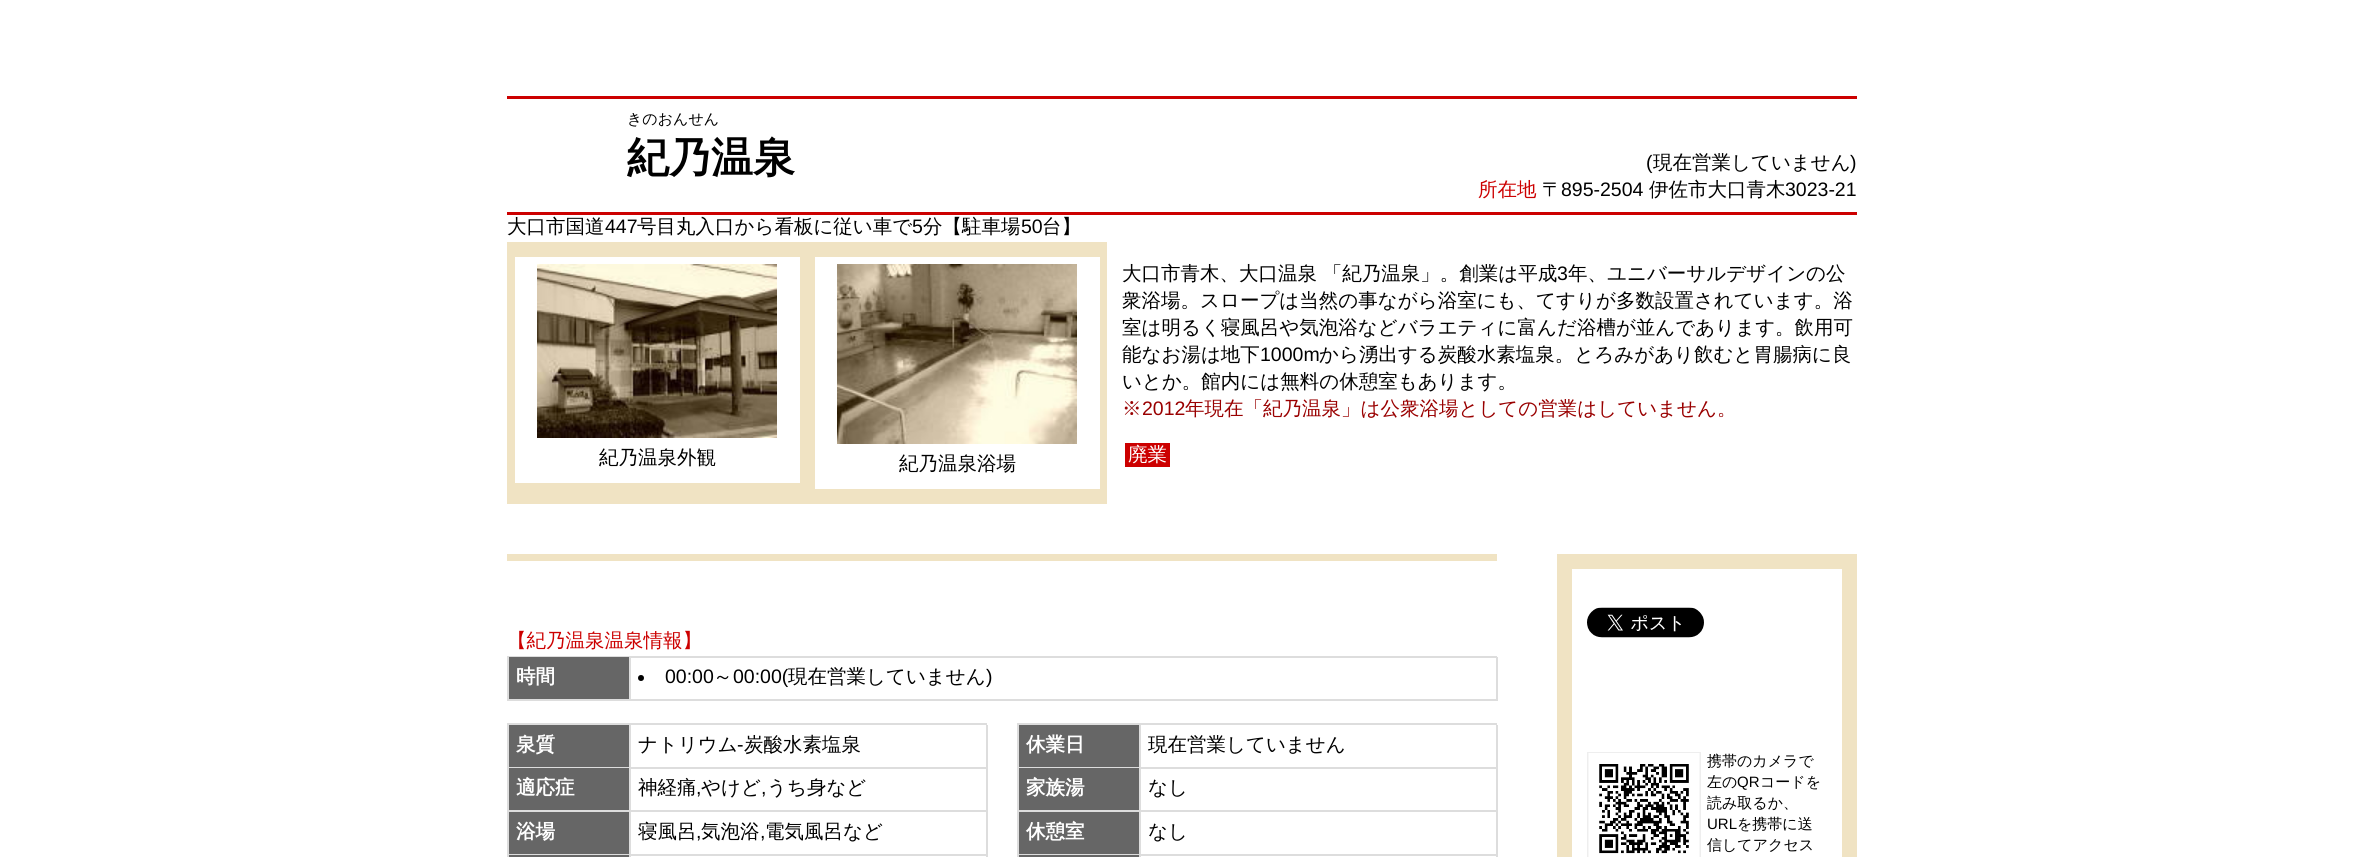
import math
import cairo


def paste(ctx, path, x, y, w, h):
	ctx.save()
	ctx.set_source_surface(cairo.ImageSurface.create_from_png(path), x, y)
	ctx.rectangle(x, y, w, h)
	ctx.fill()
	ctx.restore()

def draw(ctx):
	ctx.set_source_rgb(1, 1, 1)
	ctx.paint()
	ctx.set_source_rgb(0.8, 0, 0)
	ctx.rectangle(507, 96, 1350, 3)
	ctx.fill()
	ctx.rectangle(507, 212, 1350, 3)
	ctx.fill()
	ctx.select_font_face('WenQuanYi Zen Hei Medium')
	ctx.set_font_size(15)
	ctx.set_source_rgb(0, 0, 0)
	ctx.move_to(627, 124)
	ctx.show_text('きのおんせん')
	ctx.select_font_face('WenQuanYi Zen Hei', cairo.FONT_SLANT_NORMAL, cairo.FONT_WEIGHT_BOLD)
	ctx.set_font_size(42)
	ctx.move_to(627, 172)
	ctx.show_text('紀乃温泉')
	ctx.select_font_face('Liberation Sans')
	ctx.set_font_size(19.5)
	ctx.move_to(1646, 169)
	ctx.show_text('(')
	ctx.select_font_face('WenQuanYi Zen Hei Medium')
	ctx.move_to(1653, 169)
	ctx.show_text('現在営業していません')
	ctx.select_font_face('Liberation Sans')
	ctx.move_to(1850, 169)
	ctx.show_text(')')
	ctx.select_font_face('WenQuanYi Zen Hei Medium')
	ctx.set_source_rgb(0.8, 0, 0)
	ctx.move_to(1478, 196)
	ctx.show_text('所在地')
	ctx.set_source_rgb(0, 0, 0)
	ctx.move_to(1542, 196)
	ctx.show_text('〒')
	ctx.select_font_face('Liberation Sans')
	ctx.move_to(1561, 196)
	ctx.show_text('895-2504')
	ctx.select_font_face('WenQuanYi Zen Hei Medium')
	ctx.move_to(1649, 196)
	ctx.show_text('伊佐市大口青木')
	ctx.select_font_face('Liberation Sans')
	ctx.move_to(1785, 196)
	ctx.show_text('3023-21')
	ctx.select_font_face('WenQuanYi Zen Hei Medium')
	ctx.move_to(507, 233)
	ctx.show_text('大口市国道')
	ctx.select_font_face('Liberation Sans')
	ctx.move_to(605, 233)
	ctx.show_text('447')
	ctx.select_font_face('WenQuanYi Zen Hei Medium')
	ctx.move_to(637, 233)
	ctx.show_text('号目丸入口から看板に従い車で')
	ctx.select_font_face('Liberation Sans')
	ctx.move_to(912, 233)
	ctx.show_text('5')
	ctx.select_font_face('WenQuanYi Zen Hei Medium')
	ctx.move_to(923, 233)
	ctx.show_text('分【駐車場')
	ctx.select_font_face('Liberation Sans')
	ctx.move_to(1021, 233)
	ctx.show_text('50')
	ctx.select_font_face('WenQuanYi Zen Hei Medium')
	ctx.move_to(1042, 233)
	ctx.show_text('台】')
	ctx.set_source_rgb(0.941, 0.89, 0.765)
	ctx.rectangle(507, 242, 600, 262)
	ctx.fill()
	ctx.set_source_rgb(1, 1, 1)
	ctx.rectangle(515, 257, 285, 226)
	ctx.fill()
	paste(ctx, 'media/1.png', 537, 264, 240, 174)
	ctx.set_source_rgb(0, 0, 0)
	ctx.move_to(599, 464)
	ctx.show_text('紀乃温泉外観')
	ctx.set_source_rgb(1, 1, 1)
	ctx.rectangle(815, 257, 285, 232)
	ctx.fill()
	paste(ctx, 'media/2.png', 837, 264, 240, 180)
	ctx.set_source_rgb(0, 0, 0)
	ctx.move_to(899, 470)
	ctx.show_text('紀乃温泉浴場')
	ctx.move_to(1122, 280)
	ctx.show_text('大口市青木、大口温泉 「紀乃温泉」。創業は平成')
	ctx.select_font_face('Liberation Sans')
	ctx.move_to(1557, 280)
	ctx.show_text('3')
	ctx.select_font_face('WenQuanYi Zen Hei Medium')
	for x, y, s in [
		(1568, 280, '年、ユニバーサルデザインの公'),
		(1122, 307, '衆浴場。スロープは当然の事ながら浴室にも、てすりが多数設置されています。浴'),
		(1122, 334, '室は明るく寝風呂や気泡浴などバラエティに富んだ浴槽が並んであります。飲用可'),
		(1122, 361, '能なお湯は地下'),
	]:
		ctx.move_to(x, y)
		ctx.show_text(s)
	ctx.select_font_face('Liberation Sans')
	ctx.move_to(1260, 361)
	ctx.show_text('1000m')
	ctx.select_font_face('WenQuanYi Zen Hei Medium')
	ctx.move_to(1319, 361)
	ctx.show_text('から湧出する炭酸水素塩泉。とろみがあり飲むと胃腸病に良')
	ctx.move_to(1122, 388)
	ctx.show_text('いとか。館内には無料の休憩室もあります。')
	ctx.set_source_rgb(0.6, 0, 0)
	ctx.move_to(1122, 415)
	ctx.show_text('※')
	ctx.select_font_face('Liberation Sans')
	ctx.move_to(1142, 415)
	ctx.show_text('2012')
	ctx.select_font_face('WenQuanYi Zen Hei Medium')
	ctx.move_to(1185, 415)
	ctx.show_text('年現在「紀乃温泉」は公衆浴場としての営業はしていません。')
	ctx.set_source_rgb(0.8, 0, 0)
	ctx.rectangle(1125, 443, 45, 24)
	ctx.fill()
	ctx.set_source_rgb(1, 1, 1)
	ctx.move_to(1128, 461)
	ctx.show_text('廃業')
	ctx.set_source_rgb(0.941, 0.89, 0.765)
	ctx.rectangle(507, 554, 990, 7)
	ctx.fill()
	ctx.set_source_rgb(0.8, 0, 0)
	ctx.move_to(507, 647)
	ctx.show_text('【紀乃温泉温泉情報】')
	ctx.set_source_rgb(0.867, 0.867, 0.867)
	ctx.rectangle(507, 656, 990, 2)
	ctx.rectangle(507, 656, 2, 45)
	ctx.fill()
	ctx.set_source_rgb(0.4, 0.4, 0.4)
	ctx.rectangle(509, 657, 120, 42)
	ctx.fill()
	ctx.set_source_rgb(0.867, 0.867, 0.867)
	ctx.rectangle(629, 657, 2, 44)
	ctx.rectangle(509, 699, 121, 2)
	ctx.fill()
	ctx.select_font_face('WenQuanYi Zen Hei', cairo.FONT_SLANT_NORMAL, cairo.FONT_WEIGHT_BOLD)
	ctx.set_source_rgb(1, 1, 1)
	ctx.move_to(516, 683)
	ctx.show_text('時間')
	ctx.set_source_rgb(0.867, 0.867, 0.867)
	ctx.rectangle(1496, 657, 2, 44)
	ctx.fill()
	ctx.rectangle(630, 699, 867, 2)
	ctx.fill()
	ctx.set_source_rgb(0, 0, 0)
	ctx.arc(641, 678, 3, 0, 2 * math.pi)
	ctx.fill()
	ctx.select_font_face('Liberation Sans')
	ctx.move_to(665, 683)
	ctx.show_text('00:00')
	ctx.select_font_face('WenQuanYi Zen Hei Medium')
	ctx.move_to(713, 683)
	ctx.show_text('～')
	ctx.select_font_face('Liberation Sans')
	ctx.move_to(733, 683)
	ctx.show_text('00:00(')
	ctx.select_font_face('WenQuanYi Zen Hei Medium')
	ctx.move_to(788, 683)
	ctx.show_text('現在営業していません')
	ctx.select_font_face('Liberation Sans')
	ctx.move_to(986, 683)
	ctx.show_text(')')
	ctx.set_source_rgb(0.867, 0.867, 0.867)
	ctx.rectangle(507, 723, 480, 2)
	ctx.rectangle(507, 723, 2, 134)
	ctx.fill()
	ctx.set_source_rgb(0.4, 0.4, 0.4)
	ctx.rectangle(509, 725, 120, 42)
	ctx.fill()
	ctx.set_source_rgb(0.867, 0.867, 0.867)
	ctx.rectangle(629, 725, 2, 43)
	ctx.rectangle(509, 767, 121, 1)
	ctx.fill()
	ctx.select_font_face('WenQuanYi Zen Hei', cairo.FONT_SLANT_NORMAL, cairo.FONT_WEIGHT_BOLD)
	ctx.set_source_rgb(1, 1, 1)
	ctx.move_to(516, 751)
	ctx.show_text('泉質')
	ctx.set_source_rgb(0.867, 0.867, 0.867)
	ctx.rectangle(986, 725, 2, 43)
	ctx.fill()
	ctx.rectangle(630, 767, 357, 2)
	ctx.fill()
	ctx.select_font_face('WenQuanYi Zen Hei Medium')
	ctx.set_source_rgb(0, 0, 0)
	ctx.move_to(638, 751)
	ctx.show_text('ナトリウム')
	ctx.select_font_face('Liberation Sans')
	ctx.move_to(737, 751)
	ctx.show_text('-')
	ctx.select_font_face('WenQuanYi Zen Hei Medium')
	ctx.move_to(744, 751)
	ctx.show_text('炭酸水素塩泉')
	ctx.set_source_rgb(0.4, 0.4, 0.4)
	ctx.rectangle(509, 768, 120, 42)
	ctx.fill()
	ctx.set_source_rgb(0.867, 0.867, 0.867)
	ctx.rectangle(629, 768, 2, 87)
	ctx.rectangle(509, 810, 121, 2)
	ctx.fill()
	ctx.select_font_face('WenQuanYi Zen Hei', cairo.FONT_SLANT_NORMAL, cairo.FONT_WEIGHT_BOLD)
	ctx.set_source_rgb(1, 1, 1)
	ctx.move_to(516, 794)
	ctx.show_text('適応症')
	ctx.set_source_rgb(0.867, 0.867, 0.867)
	ctx.rectangle(986, 768, 2, 87)
	ctx.fill()
	ctx.rectangle(630, 810, 357, 2)
	ctx.fill()
	ctx.select_font_face('WenQuanYi Zen Hei Medium')
	ctx.set_source_rgb(0, 0, 0)
	ctx.move_to(638, 794)
	ctx.show_text('神経痛')
	ctx.select_font_face('Liberation Sans')
	ctx.move_to(696, 794)
	ctx.show_text(',')
	ctx.select_font_face('WenQuanYi Zen Hei Medium')
	ctx.move_to(701, 794)
	ctx.show_text('やけど')
	ctx.select_font_face('Liberation Sans')
	ctx.move_to(761, 794)
	ctx.show_text(',')
	ctx.select_font_face('WenQuanYi Zen Hei Medium')
	ctx.move_to(767, 794)
	ctx.show_text('うち身など')
	ctx.set_source_rgb(0.4, 0.4, 0.4)
	ctx.rectangle(509, 812, 120, 42)
	ctx.fill()
	ctx.set_source_rgb(0.867, 0.867, 0.867)
	ctx.rectangle(509, 854, 121, 1)
	ctx.fill()
	ctx.select_font_face('WenQuanYi Zen Hei', cairo.FONT_SLANT_NORMAL, cairo.FONT_WEIGHT_BOLD)
	ctx.set_source_rgb(1, 1, 1)
	ctx.move_to(516, 838)
	ctx.show_text('浴場')
	ctx.set_source_rgb(0.867, 0.867, 0.867)
	ctx.rectangle(630, 854, 357, 2)
	ctx.fill()
	ctx.select_font_face('WenQuanYi Zen Hei Medium')
	ctx.set_source_rgb(0, 0, 0)
	ctx.move_to(638, 838)
	ctx.show_text('寝風呂')
	ctx.select_font_face('Liberation Sans')
	ctx.move_to(696, 838)
	ctx.show_text(',')
	ctx.select_font_face('WenQuanYi Zen Hei Medium')
	ctx.move_to(701, 838)
	ctx.show_text('気泡浴')
	ctx.select_font_face('Liberation Sans')
	ctx.move_to(760, 838)
	ctx.show_text(',')
	ctx.select_font_face('WenQuanYi Zen Hei Medium')
	ctx.move_to(765, 838)
	ctx.show_text('電気風呂など')
	ctx.set_source_rgb(0.4, 0.4, 0.4)
	ctx.rectangle(509, 855, 121, 2)
	ctx.fill()
	ctx.set_source_rgb(0.867, 0.867, 0.867)
	ctx.rectangle(629, 855, 2, 2)
	ctx.rectangle(986, 855, 2, 2)
	ctx.rectangle(1017, 723, 480, 2)
	ctx.rectangle(1017, 723, 2, 134)
	ctx.fill()
	ctx.set_source_rgb(0.4, 0.4, 0.4)
	ctx.rectangle(1019, 725, 120, 42)
	ctx.fill()
	ctx.set_source_rgb(0.867, 0.867, 0.867)
	ctx.rectangle(1139, 725, 2, 43)
	ctx.rectangle(1019, 767, 121, 1)
	ctx.fill()
	ctx.select_font_face('WenQuanYi Zen Hei', cairo.FONT_SLANT_NORMAL, cairo.FONT_WEIGHT_BOLD)
	ctx.set_source_rgb(1, 1, 1)
	ctx.move_to(1026, 751)
	ctx.show_text('休業日')
	ctx.set_source_rgb(0.867, 0.867, 0.867)
	ctx.rectangle(1496, 725, 2, 43)
	ctx.fill()
	ctx.rectangle(1140, 767, 357, 2)
	ctx.fill()
	ctx.select_font_face('WenQuanYi Zen Hei Medium')
	ctx.set_source_rgb(0, 0, 0)
	ctx.move_to(1148, 751)
	ctx.show_text('現在営業していません')
	ctx.set_source_rgb(0.4, 0.4, 0.4)
	ctx.rectangle(1019, 768, 120, 42)
	ctx.fill()
	ctx.set_source_rgb(0.867, 0.867, 0.867)
	ctx.rectangle(1139, 768, 2, 87)
	ctx.rectangle(1019, 810, 121, 2)
	ctx.fill()
	ctx.select_font_face('WenQuanYi Zen Hei', cairo.FONT_SLANT_NORMAL, cairo.FONT_WEIGHT_BOLD)
	ctx.set_source_rgb(1, 1, 1)
	ctx.move_to(1026, 794)
	ctx.show_text('家族湯')
	ctx.set_source_rgb(0.867, 0.867, 0.867)
	ctx.rectangle(1496, 768, 2, 87)
	ctx.fill()
	ctx.rectangle(1140, 810, 357, 2)
	ctx.fill()
	ctx.select_font_face('WenQuanYi Zen Hei Medium')
	ctx.set_source_rgb(0, 0, 0)
	ctx.move_to(1148, 794)
	ctx.show_text('なし')
	ctx.set_source_rgb(0.4, 0.4, 0.4)
	ctx.rectangle(1019, 812, 120, 42)
	ctx.fill()
	ctx.set_source_rgb(0.867, 0.867, 0.867)
	ctx.rectangle(1019, 854, 121, 1)
	ctx.fill()
	ctx.select_font_face('WenQuanYi Zen Hei', cairo.FONT_SLANT_NORMAL, cairo.FONT_WEIGHT_BOLD)
	ctx.set_source_rgb(1, 1, 1)
	ctx.move_to(1026, 838)
	ctx.show_text('休憩室')
	ctx.set_source_rgb(0.867, 0.867, 0.867)
	ctx.rectangle(1140, 854, 357, 2)
	ctx.fill()
	ctx.select_font_face('WenQuanYi Zen Hei Medium')
	ctx.set_source_rgb(0, 0, 0)
	ctx.move_to(1148, 838)
	ctx.show_text('なし')
	ctx.set_source_rgb(0.4, 0.4, 0.4)
	ctx.rectangle(1019, 855, 121, 2)
	ctx.fill()
	ctx.set_source_rgb(0.867, 0.867, 0.867)
	ctx.rectangle(1139, 855, 2, 2)
	ctx.rectangle(1496, 855, 2, 2)
	ctx.fill()
	ctx.set_source_rgb(0.941, 0.89, 0.765)
	ctx.rectangle(1557, 554, 300, 303)
	ctx.fill()
	ctx.set_source_rgb(1, 1, 1)
	ctx.rectangle(1572, 569, 270, 288)
	ctx.fill()
	paste(ctx, 'media/3.png', 1587, 607, 117, 31)
	ctx.rectangle(1588, 753, 112, 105)
	ctx.set_source_rgb(0.933, 0.933, 0.933)
	ctx.stroke()
	paste(ctx, 'media/4.png', 1588, 753, 112, 104)
	ctx.set_font_size(15)
	ctx.set_source_rgb(0, 0, 0)
	ctx.move_to(1707, 766)
	ctx.show_text('携帯のカメラで')
	ctx.move_to(1707, 787)
	ctx.show_text('左の')
	ctx.select_font_face('Liberation Sans')
	ctx.move_to(1737, 787)
	ctx.show_text('QR')
	ctx.select_font_face('WenQuanYi Zen Hei Medium')
	ctx.move_to(1760, 787)
	ctx.show_text('コードを')
	ctx.move_to(1707, 808)
	ctx.show_text('読み取るか、')
	ctx.select_font_face('Liberation Sans')
	ctx.move_to(1707, 829)
	ctx.show_text('URL')
	ctx.select_font_face('WenQuanYi Zen Hei Medium')
	ctx.move_to(1737, 829)
	ctx.show_text('を携帯に送')
	ctx.move_to(1707, 850)
	ctx.show_text('信してアクセス')


surface = cairo.ImageSurface(cairo.FORMAT_RGB24, 2363, 857)
ctx = cairo.Context(surface)
options = cairo.FontOptions()
options.set_hint_metrics(cairo.HINT_METRICS_OFF)
options.set_hint_style(cairo.HINT_STYLE_NONE)
ctx.set_font_options(options)
ctx.set_miter_limit(4)
draw(ctx)
surface.write_to_png('image.png')
